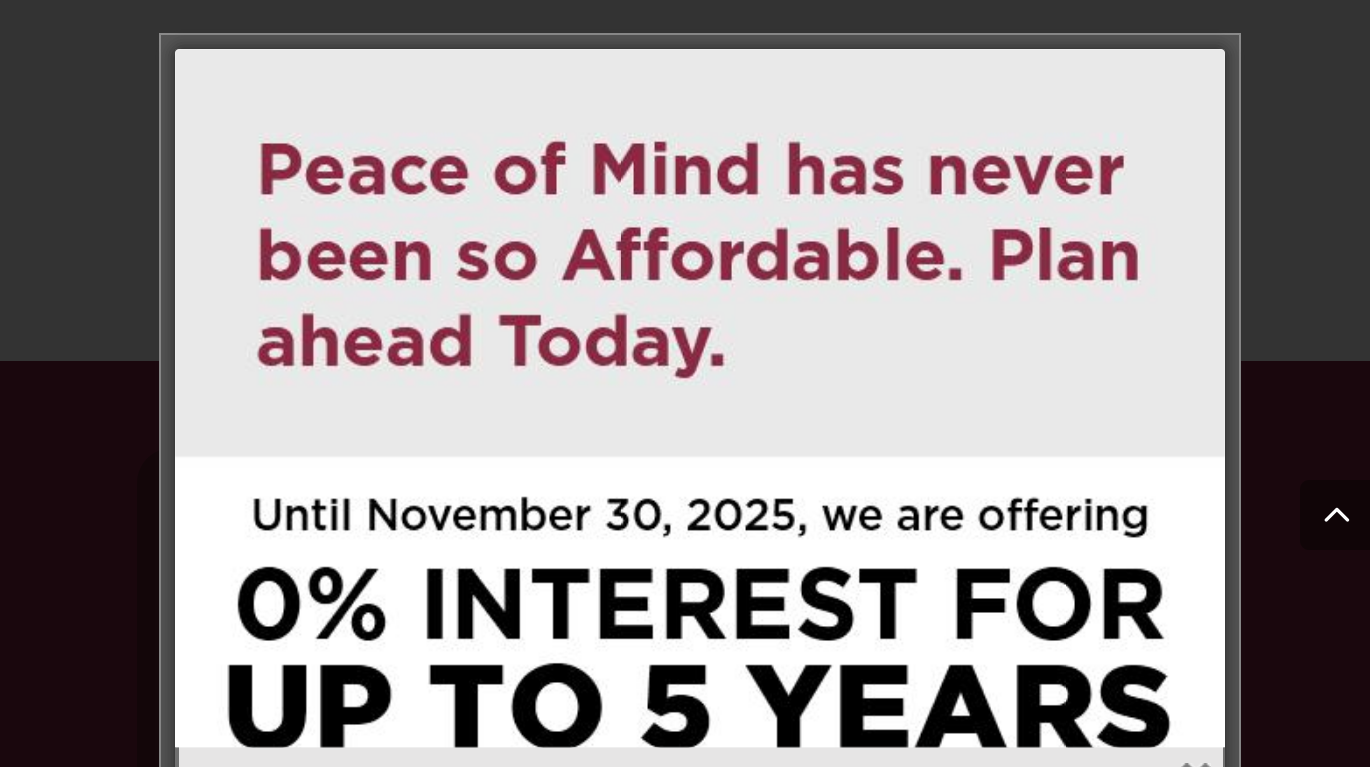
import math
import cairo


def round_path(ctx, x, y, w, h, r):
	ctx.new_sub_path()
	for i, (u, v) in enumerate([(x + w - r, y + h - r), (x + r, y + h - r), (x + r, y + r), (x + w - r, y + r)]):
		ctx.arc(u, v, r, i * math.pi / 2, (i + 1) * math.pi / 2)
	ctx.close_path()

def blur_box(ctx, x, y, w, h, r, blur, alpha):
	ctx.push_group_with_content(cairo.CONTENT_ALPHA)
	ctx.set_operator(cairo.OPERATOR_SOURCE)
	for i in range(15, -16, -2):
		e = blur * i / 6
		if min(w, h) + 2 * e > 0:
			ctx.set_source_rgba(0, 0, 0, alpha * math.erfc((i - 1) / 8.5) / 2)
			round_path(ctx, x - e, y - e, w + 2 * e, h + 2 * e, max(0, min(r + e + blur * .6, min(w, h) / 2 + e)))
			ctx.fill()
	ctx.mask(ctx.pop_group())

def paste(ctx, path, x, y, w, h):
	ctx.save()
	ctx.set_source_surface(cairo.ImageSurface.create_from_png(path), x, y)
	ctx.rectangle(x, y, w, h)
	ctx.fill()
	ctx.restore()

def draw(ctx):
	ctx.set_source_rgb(0.2, 0.2, 0.2)
	ctx.paint()
	ctx.set_source_rgb(0.102, 0.031, 0.051)
	ctx.rectangle(0, 361, 1370, 406)
	ctx.fill()
	ctx.set_source_rgb(0.078, 0.024, 0.039)
	round_path(ctx, 137, 448, 1097, 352, 35)
	ctx.fill()
	ctx.set_source_rgb(0.439, 0.439, 0.439)
	ctx.rectangle(168, 42, 1064, 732)
	ctx.fill_preserve()
	ctx.set_source_rgb(0.333, 0.333, 0.333)
	ctx.set_line_width(14)
	ctx.stroke()
	ctx.rectangle(160, 34, 1080, 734)
	ctx.set_source_rgb(0.541, 0.541, 0.541)
	ctx.set_line_width(2)
	ctx.stroke()
	ctx.save()
	ctx.set_fill_rule(cairo.FILL_RULE_EVEN_ODD)
	ctx.new_path()
	ctx.move_to(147, 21)
	ctx.line_to(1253, 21)
	ctx.line_to(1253, 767)
	ctx.line_to(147, 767)
	ctx.close_path()
	ctx.move_to(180, 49)
	ctx.line_to(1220, 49)
	ctx.curve_to(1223, 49, 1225, 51, 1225, 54)
	ctx.line_to(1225, 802)
	ctx.curve_to(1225, 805, 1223, 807, 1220, 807)
	ctx.line_to(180, 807)
	ctx.curve_to(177, 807, 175, 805, 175, 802)
	ctx.line_to(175, 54)
	ctx.curve_to(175, 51, 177, 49, 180, 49)
	ctx.close_path()
	ctx.clip()
	ctx.set_source_rgb(0.133, 0.133, 0.133)
	blur_box(ctx, 175, 49, 1050, 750, 5, 9, 1)
	ctx.restore()
	ctx.set_source_rgb(1, 1, 1)
	ctx.new_path()
	ctx.move_to(180, 49)
	ctx.line_to(1220, 49)
	ctx.curve_to(1223, 49, 1225, 51, 1225, 54)
	ctx.line_to(1225, 747)
	ctx.line_to(175, 747)
	ctx.line_to(175, 54)
	ctx.curve_to(175, 51, 177, 49, 180, 49)
	ctx.close_path()
	ctx.fill()
	ctx.set_source_rgb(0.902, 0.898, 0.898)
	ctx.rectangle(179, 747, 1044, 20)
	ctx.fill()
	paste(ctx, 'media/1.png', 175, 49, 1050, 699)
	paste(ctx, 'media/2.png', 1181, 763, 30, 4)
	ctx.set_source_rgb(0.063, 0.02, 0.031)
	ctx.new_path()
	ctx.move_to(1309, 480)
	ctx.line_to(1370, 480)
	ctx.line_to(1370, 550)
	ctx.line_to(1309, 550)
	ctx.curve_to(1304, 550, 1300, 546, 1300, 541)
	ctx.line_to(1300, 489)
	ctx.curve_to(1300, 484, 1304, 480, 1309, 480)
	ctx.close_path()
	ctx.fill()
	paste(ctx, 'media/3.png', 1324, 507, 26, 15)


surface = cairo.ImageSurface(cairo.FORMAT_RGB24, 1370, 767)
ctx = cairo.Context(surface)
options = cairo.FontOptions()
options.set_hint_metrics(cairo.HINT_METRICS_OFF)
options.set_hint_style(cairo.HINT_STYLE_NONE)
ctx.set_font_options(options)
ctx.set_miter_limit(4)
draw(ctx)
surface.write_to_png('image.png')
